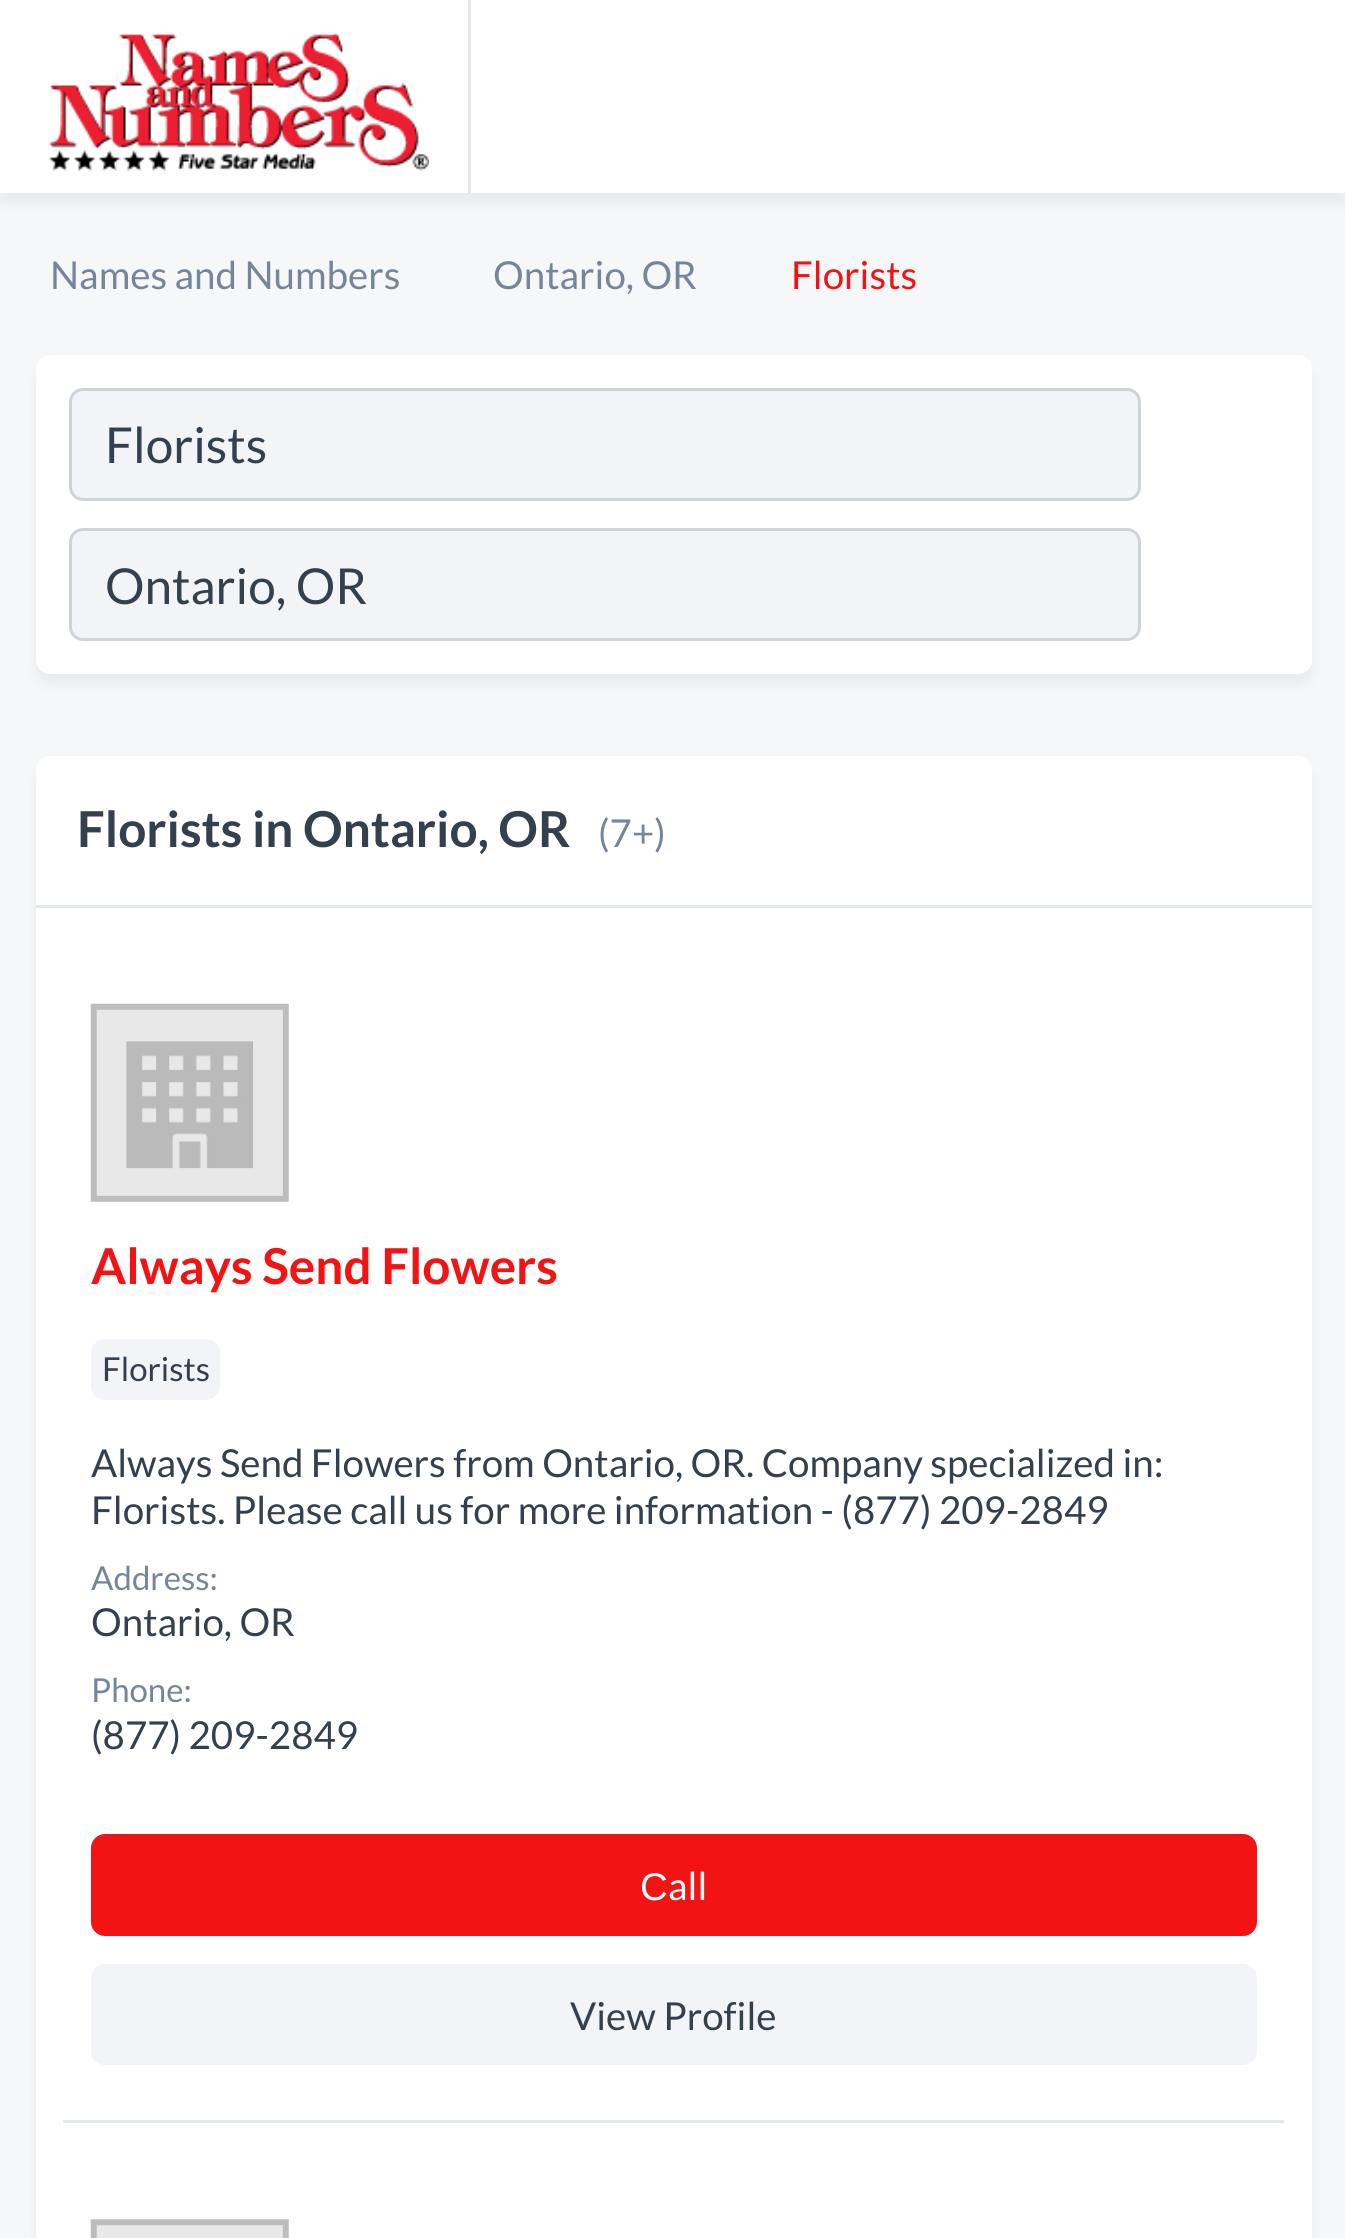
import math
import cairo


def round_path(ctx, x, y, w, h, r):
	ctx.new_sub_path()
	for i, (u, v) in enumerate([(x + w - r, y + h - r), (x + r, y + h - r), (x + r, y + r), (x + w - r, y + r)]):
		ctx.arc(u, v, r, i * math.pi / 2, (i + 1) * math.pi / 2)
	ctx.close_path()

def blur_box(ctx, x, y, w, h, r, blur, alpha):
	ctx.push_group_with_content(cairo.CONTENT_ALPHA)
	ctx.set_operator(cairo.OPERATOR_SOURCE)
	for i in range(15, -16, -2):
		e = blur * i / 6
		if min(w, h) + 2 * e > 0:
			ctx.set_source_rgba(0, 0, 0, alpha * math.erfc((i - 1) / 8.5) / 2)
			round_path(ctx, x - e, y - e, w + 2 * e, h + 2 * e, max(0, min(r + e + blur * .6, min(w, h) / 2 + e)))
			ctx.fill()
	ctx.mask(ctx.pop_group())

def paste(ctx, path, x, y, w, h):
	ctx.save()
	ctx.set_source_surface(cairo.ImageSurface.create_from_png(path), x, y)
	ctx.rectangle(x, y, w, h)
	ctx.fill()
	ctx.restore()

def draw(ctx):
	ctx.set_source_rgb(0.961, 0.965, 0.973)
	ctx.paint()
	ctx.set_source_rgb(0, 0, 0)
	blur_box(ctx, 0, 11, 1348, 193, 0, 5.5, 0.05)
	ctx.set_source_rgb(1, 1, 1)
	ctx.rectangle(0, 0, 1345, 193)
	ctx.fill()
	paste(ctx, 'media/1.png', 49, 33, 380, 138)
	ctx.set_source_rgb(0.906, 0.906, 0.906)
	ctx.rectangle(468, 0, 3, 193)
	ctx.fill()
	ctx.select_font_face('Lato')
	ctx.set_font_size(38.5)
	ctx.set_source_rgb(0.467, 0.522, 0.604)
	ctx.move_to(50, 289)
	ctx.show_text('Names and Numbers')
	ctx.move_to(493, 289)
	ctx.show_text('Ontario, OR')
	ctx.set_source_rgb(0.949, 0.082, 0.082)
	ctx.move_to(791, 289)
	ctx.show_text('Florists')
	ctx.set_source_rgb(0, 0, 0)
	blur_box(ctx, 36, 366, 1276, 319, 14, 5.5, 0.05)
	ctx.set_source_rgb(1, 1, 1)
	round_path(ctx, 36, 355, 1276, 319, 14)
	ctx.fill()
	ctx.set_source_rgb(0.949, 0.957, 0.965)
	round_path(ctx, 70.5, 389.5, 1069, 110, 12.5)
	ctx.fill_preserve()
	ctx.set_source_rgb(0.808, 0.831, 0.855)
	ctx.set_line_width(3)
	ctx.stroke()
	ctx.set_font_size(49.5)
	ctx.set_source_rgb(0.204, 0.251, 0.306)
	ctx.move_to(105, 463)
	ctx.show_text('Florists')
	ctx.set_source_rgb(0.949, 0.957, 0.965)
	round_path(ctx, 70.5, 529.5, 1069, 110, 12.5)
	ctx.fill_preserve()
	ctx.set_source_rgb(0.808, 0.831, 0.855)
	ctx.stroke()
	ctx.set_source_rgb(0.204, 0.251, 0.306)
	ctx.move_to(105, 604)
	ctx.show_text('Ontario, OR')
	ctx.set_source_rgb(0, 0, 0)
	blur_box(ctx, 36, 767, 1276, 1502, 14, 5.5, 0.05)
	ctx.set_source_rgb(1, 1, 1)
	round_path(ctx, 36, 756, 1276, 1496, 14)
	ctx.fill()
	ctx.set_source_rgb(0.886, 0.91, 0.929)
	ctx.rectangle(36, 905, 1276, 3)
	ctx.fill()
	ctx.select_font_face('Lato', cairo.FONT_SLANT_NORMAL, cairo.FONT_WEIGHT_BOLD)
	ctx.set_source_rgb(0.204, 0.251, 0.306)
	ctx.move_to(77, 847)
	ctx.show_text('Florists in Ontario, OR')
	ctx.select_font_face('Lato')
	ctx.set_font_size(38.5)
	ctx.set_source_rgb(0.467, 0.522, 0.604)
	ctx.move_to(598, 847)
	ctx.show_text('(7+)')
	ctx.set_source_rgb(0.886, 0.91, 0.929)
	ctx.rectangle(63, 2120, 1221, 3)
	ctx.fill()
	paste(ctx, 'media/2.png', 90, 1003, 199, 199)
	ctx.select_font_face('Lato', cairo.FONT_SLANT_NORMAL, cairo.FONT_WEIGHT_BOLD)
	ctx.set_font_size(49.5)
	ctx.set_source_rgb(0.949, 0.082, 0.082)
	ctx.move_to(91, 1284)
	ctx.show_text('Always Send Flowers')
	ctx.set_source_rgb(0.949, 0.957, 0.965)
	round_path(ctx, 91, 1339, 129, 61, 14)
	ctx.fill()
	ctx.select_font_face('Lato')
	ctx.set_font_size(33)
	ctx.set_source_rgb(0.204, 0.251, 0.306)
	ctx.move_to(102, 1381)
	ctx.show_text('Florists')
	ctx.set_font_size(38.5)
	ctx.move_to(91, 1477)
	ctx.show_text('Always Send Flowers from Ontario, OR. Company specialized in:')
	ctx.move_to(91, 1524)
	ctx.show_text('Florists. Please call us for more information - (877) 209-2849')
	ctx.set_font_size(33)
	ctx.set_source_rgb(0.467, 0.522, 0.604)
	ctx.move_to(91, 1590)
	ctx.show_text('Address:')
	ctx.set_font_size(38.5)
	ctx.set_source_rgb(0.204, 0.251, 0.306)
	ctx.move_to(91, 1636)
	ctx.show_text('Ontario, OR')
	ctx.set_font_size(33)
	ctx.set_source_rgb(0.467, 0.522, 0.604)
	ctx.move_to(91, 1702)
	ctx.show_text('Phone:')
	ctx.set_font_size(38.5)
	ctx.set_source_rgb(0.204, 0.251, 0.306)
	ctx.move_to(91, 1749)
	ctx.show_text('(877) 209-2849')
	ctx.set_source_rgb(0.949, 0.082, 0.082)
	round_path(ctx, 91, 1834, 1166, 102, 14)
	ctx.fill()
	ctx.select_font_face('Liberation Sans')
	ctx.set_source_rgb(1, 1, 1)
	ctx.move_to(640, 1900)
	ctx.show_text('С')
	ctx.select_font_face('Lato')
	ctx.move_to(668, 1900)
	ctx.show_text('all')
	ctx.set_source_rgb(0.949, 0.957, 0.965)
	round_path(ctx, 91, 1964, 1166, 101, 14)
	ctx.fill()
	ctx.set_source_rgb(0.204, 0.251, 0.306)
	ctx.move_to(570, 2030)
	ctx.show_text('View Profile')
	paste(ctx, 'media/3.png', 90, 2219, 199, 19)


surface = cairo.ImageSurface(cairo.FORMAT_RGB24, 1345, 2238)
ctx = cairo.Context(surface)
options = cairo.FontOptions()
options.set_hint_metrics(cairo.HINT_METRICS_OFF)
options.set_hint_style(cairo.HINT_STYLE_NONE)
ctx.set_font_options(options)
ctx.set_miter_limit(4)
draw(ctx)
surface.write_to_png('image.png')
